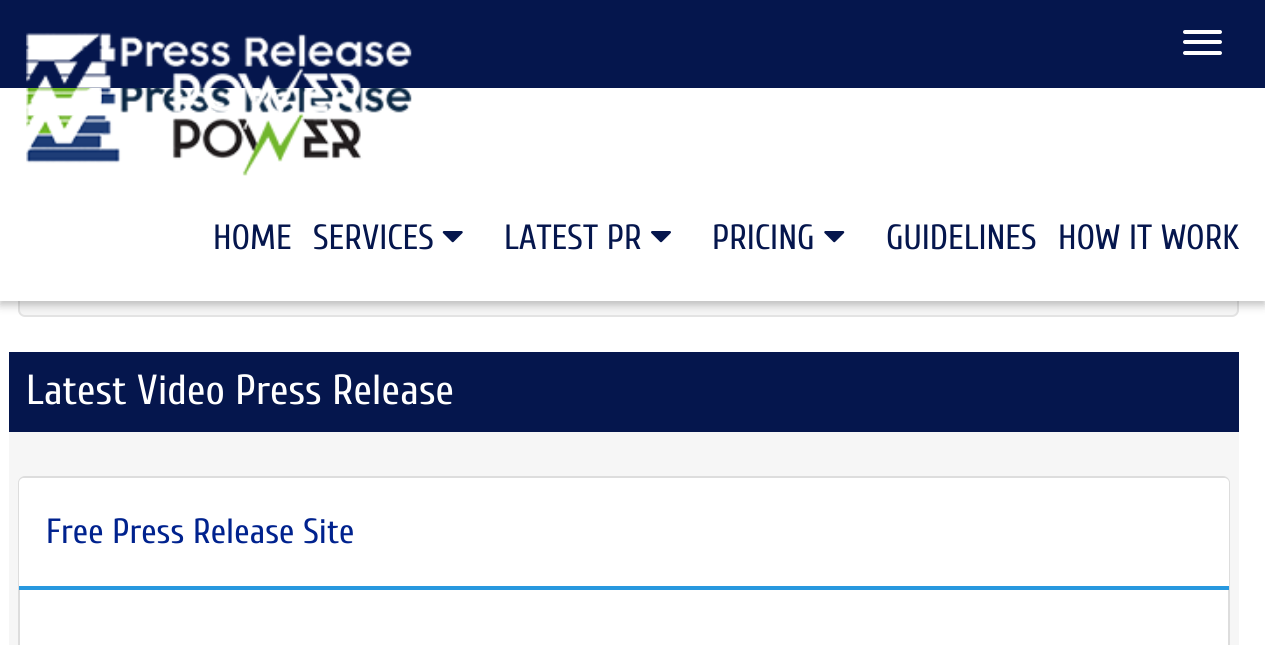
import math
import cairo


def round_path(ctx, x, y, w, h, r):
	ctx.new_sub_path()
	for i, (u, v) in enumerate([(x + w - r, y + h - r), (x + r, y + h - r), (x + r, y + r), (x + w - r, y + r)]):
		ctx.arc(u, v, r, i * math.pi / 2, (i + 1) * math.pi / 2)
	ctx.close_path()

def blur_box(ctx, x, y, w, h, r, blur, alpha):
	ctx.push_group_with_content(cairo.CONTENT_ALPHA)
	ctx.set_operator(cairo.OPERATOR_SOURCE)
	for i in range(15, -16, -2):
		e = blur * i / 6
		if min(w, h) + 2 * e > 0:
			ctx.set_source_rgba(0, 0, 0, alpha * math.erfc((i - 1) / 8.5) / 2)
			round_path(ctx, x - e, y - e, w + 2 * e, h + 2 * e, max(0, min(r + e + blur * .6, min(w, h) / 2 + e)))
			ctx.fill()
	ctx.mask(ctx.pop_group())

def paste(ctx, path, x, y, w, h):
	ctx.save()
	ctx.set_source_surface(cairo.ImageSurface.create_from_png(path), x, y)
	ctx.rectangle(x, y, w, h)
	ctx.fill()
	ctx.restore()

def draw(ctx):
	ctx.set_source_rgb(1, 1, 1)
	ctx.paint()
	ctx.set_source_rgb(0.961, 0.961, 0.961)
	round_path(ctx, 19, 202, 1219, 114, 6)
	ctx.fill_preserve()
	ctx.set_source_rgb(0.89, 0.89, 0.89)
	ctx.stroke()
	ctx.set_source_rgb(0, 0, 0)
	blur_box(ctx, 0, 65, 1265, 240, 0, 4.5, 0.25)
	ctx.set_source_rgb(0.02, 0.086, 0.302)
	ctx.rectangle(0, 0, 1265, 88)
	ctx.fill()
	ctx.set_source_rgb(1, 1, 1)
	ctx.rectangle(0, 88, 1265, 213)
	ctx.fill()
	paste(ctx, 'media/2.png', 26, 88, 386, 88)
	paste(ctx, 'media/1.png', 26, 32, 386, 98)
	round_path(ctx, 1183, 30, 39, 4, 2)
	ctx.fill()
	round_path(ctx, 1183, 40, 39, 4, 2)
	ctx.fill()
	round_path(ctx, 1183, 51, 39, 4, 2)
	ctx.fill()
	ctx.select_font_face('Cuprum')
	ctx.set_font_size(35)
	ctx.set_source_rgb(0.02, 0.086, 0.302)
	ctx.move_to(213, 249)
	ctx.show_text('HOME')
	ctx.move_to(313, 249)
	ctx.show_text('SERVICES')
	paste(ctx, 'media/3.png', 442, 231, 21, 12)
	ctx.move_to(504, 249)
	ctx.show_text('LATEST PR')
	paste(ctx, 'media/4.png', 651, 231, 20, 12)
	ctx.move_to(712, 249)
	ctx.show_text('PRICING')
	paste(ctx, 'media/5.png', 824, 231, 21, 12)
	ctx.move_to(886, 249)
	ctx.show_text('GUIDELINES')
	ctx.move_to(1058, 249)
	ctx.show_text('HOW IT WORK')
	ctx.rectangle(9, 352, 1230, 80)
	ctx.fill()
	ctx.set_font_size(42)
	ctx.set_source_rgb(1, 1, 1)
	ctx.move_to(26, 404)
	ctx.show_text('Latest Video Press Release')
	ctx.set_source_rgb(0.961, 0.961, 0.961)
	ctx.rectangle(9, 432, 1230, 213)
	ctx.fill()
	ctx.set_source_rgb(1, 1, 1)
	round_path(ctx, 19, 477, 1210, 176, 6)
	ctx.fill_preserve()
	ctx.set_source_rgb(0.867, 0.867, 0.867)
	ctx.stroke()
	ctx.set_source_rgb(1, 1, 1)
	ctx.new_path()
	ctx.move_to(24, 478)
	ctx.line_to(1224, 478)
	ctx.curve_to(1227, 478, 1229, 480, 1229, 483)
	ctx.line_to(1229, 590)
	ctx.line_to(19, 590)
	ctx.line_to(19, 483)
	ctx.curve_to(19, 480, 21, 478, 24, 478)
	ctx.close_path()
	ctx.fill()
	ctx.set_source_rgb(0.153, 0.596, 0.875)
	ctx.rectangle(19, 586, 1210, 4)
	ctx.fill()
	ctx.set_font_size(35)
	ctx.set_source_rgb(0, 0.133, 0.557)
	ctx.move_to(46, 543)
	ctx.show_text('Free Press Release Site')


surface = cairo.ImageSurface(cairo.FORMAT_RGB24, 1265, 645)
ctx = cairo.Context(surface)
options = cairo.FontOptions()
options.set_hint_metrics(cairo.HINT_METRICS_OFF)
options.set_hint_style(cairo.HINT_STYLE_NONE)
ctx.set_font_options(options)
ctx.set_miter_limit(4)
draw(ctx)
surface.write_to_png('image.png')
